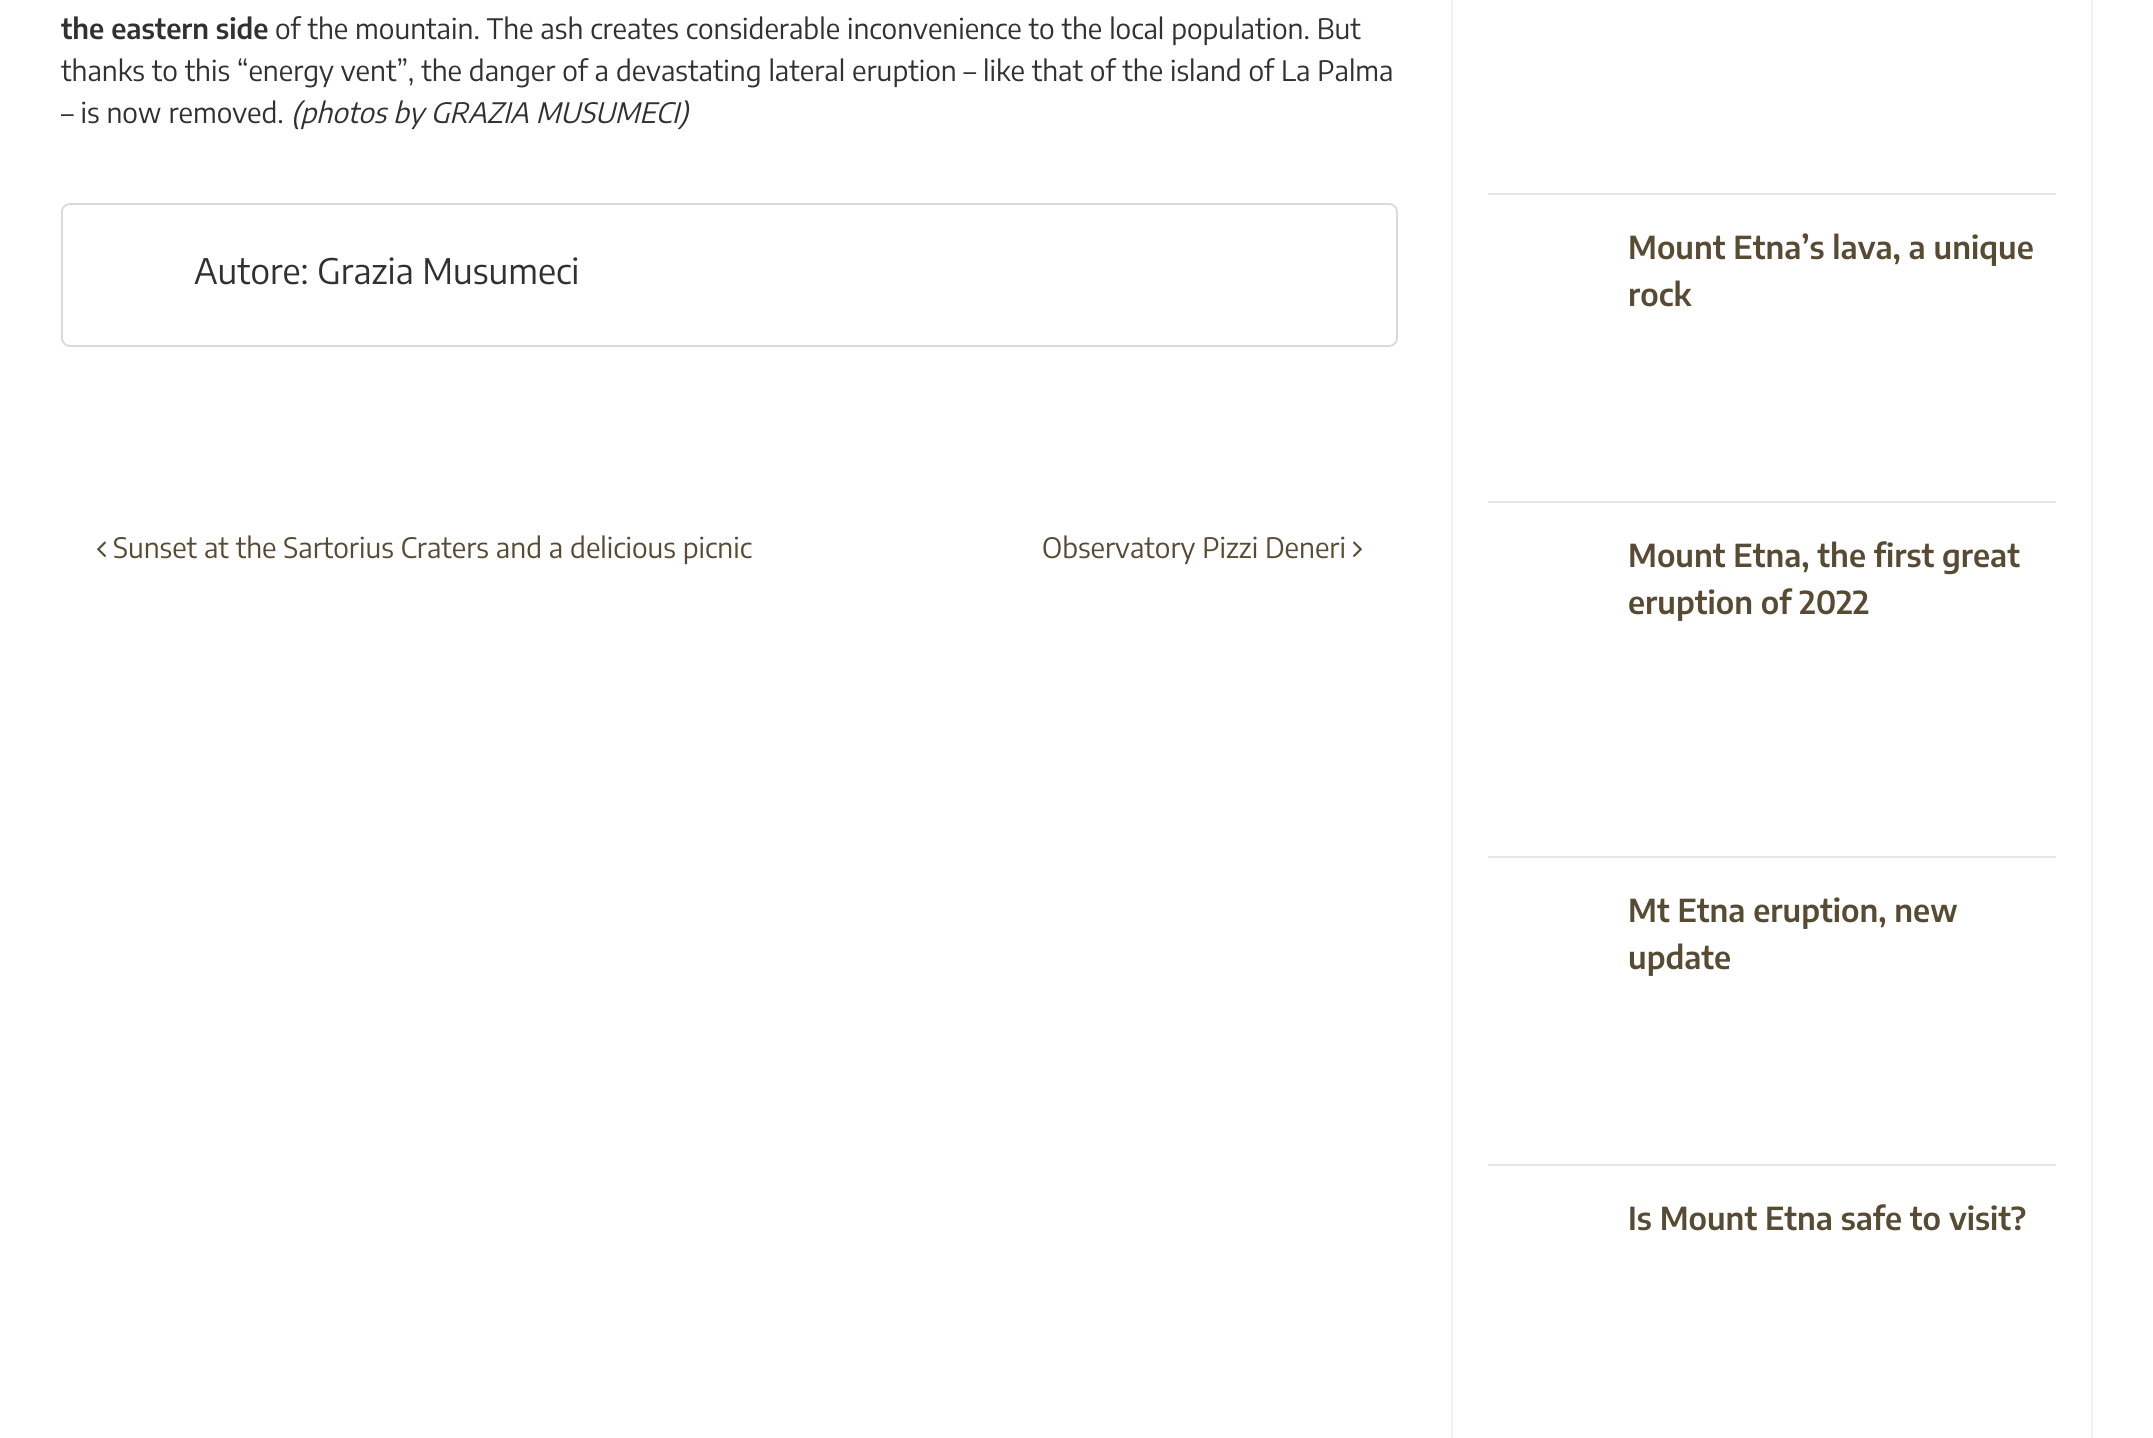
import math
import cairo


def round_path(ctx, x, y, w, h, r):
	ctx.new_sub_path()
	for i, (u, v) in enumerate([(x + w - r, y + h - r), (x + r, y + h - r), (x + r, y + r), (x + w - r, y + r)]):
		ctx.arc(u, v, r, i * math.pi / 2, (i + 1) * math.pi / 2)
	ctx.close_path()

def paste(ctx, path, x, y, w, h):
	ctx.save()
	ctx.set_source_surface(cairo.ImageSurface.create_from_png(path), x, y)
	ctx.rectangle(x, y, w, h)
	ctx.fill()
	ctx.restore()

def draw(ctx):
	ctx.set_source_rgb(1, 1, 1)
	ctx.paint()
	ctx.select_font_face('Encode Sans Condensed SemiBold')
	ctx.set_font_size(28)
	ctx.set_source_rgb(0.192, 0.192, 0.192)
	ctx.move_to(61, 39)
	ctx.show_text('the eastern side')
	ctx.select_font_face('Encode Sans Condensed')
	for x, y, s in [
		(275, 39, 'of the mountain. The ash creates considerable inconvenience to the local population. But'),
		(61, 81, 'thanks to this “energy vent”, the danger of a devastating lateral eruption – like that of the island of La Palma'),
		(61, 123, '– is now removed.'),
	]:
		ctx.move_to(x, y)
		ctx.show_text(s)
	ctx.select_font_face('Encode Sans Condensed', cairo.FONT_SLANT_ITALIC)
	ctx.move_to(291, 123)
	ctx.show_text('(photos by GRAZIA MUSUMECI)')
	round_path(ctx, 62, 204, 1335, 142, 8)
	ctx.set_source_rgb(0.855, 0.855, 0.855)
	ctx.stroke()
	ctx.select_font_face('Encode Sans Condensed')
	ctx.set_font_size(35)
	ctx.set_source_rgb(0.192, 0.192, 0.192)
	ctx.move_to(194, 284)
	ctx.show_text('Autore: Grazia Musumeci')
	paste(ctx, 'media/1.png', 97, 541, 9, 16)
	ctx.set_font_size(28)
	ctx.set_source_rgb(0.345, 0.294, 0.2)
	ctx.move_to(113, 558)
	ctx.show_text('Sunset at the Sartorius Craters and a delicious picnic')
	ctx.move_to(1042, 558)
	ctx.show_text('Observatory Pizzi Deneri')
	paste(ctx, 'media/2.png', 1353, 541, 9, 16)
	ctx.rectangle(1452, -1, 640, 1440)
	ctx.set_source_rgb(0.949, 0.949, 0.949)
	ctx.stroke()
	ctx.set_source_rgb(0.902, 0.902, 0.902)
	ctx.rectangle(1488, 193, 568, 2)
	ctx.fill()
	ctx.select_font_face('Encode Sans Condensed SemiBold')
	ctx.set_font_size(31.5)
	ctx.set_source_rgb(0.345, 0.294, 0.2)
	ctx.move_to(1628, 259)
	ctx.show_text('Mount Etna’s lava, a unique')
	ctx.move_to(1628, 306)
	ctx.show_text('rock')
	ctx.set_source_rgb(0.902, 0.902, 0.902)
	ctx.rectangle(1488, 501, 568, 2)
	ctx.fill()
	ctx.set_source_rgb(0.345, 0.294, 0.2)
	ctx.move_to(1628, 567)
	ctx.show_text('Mount Etna, the first great')
	ctx.move_to(1628, 614)
	ctx.show_text('eruption of 2022')
	ctx.set_source_rgb(0.902, 0.902, 0.902)
	ctx.rectangle(1488, 856, 568, 2)
	ctx.fill()
	ctx.set_source_rgb(0.345, 0.294, 0.2)
	ctx.move_to(1628, 922)
	ctx.show_text('Mt Etna eruption, new')
	ctx.move_to(1628, 969)
	ctx.show_text('update')
	ctx.set_source_rgb(0.902, 0.902, 0.902)
	ctx.rectangle(1488, 1164, 568, 2)
	ctx.fill()
	ctx.set_source_rgb(0.345, 0.294, 0.2)
	ctx.move_to(1628, 1230)
	ctx.show_text('Is Mount Etna safe to visit?')


surface = cairo.ImageSurface(cairo.FORMAT_RGB24, 2153, 1438)
ctx = cairo.Context(surface)
options = cairo.FontOptions()
options.set_hint_metrics(cairo.HINT_METRICS_OFF)
options.set_hint_style(cairo.HINT_STYLE_NONE)
ctx.set_font_options(options)
ctx.set_miter_limit(4)
draw(ctx)
surface.write_to_png('image.png')
